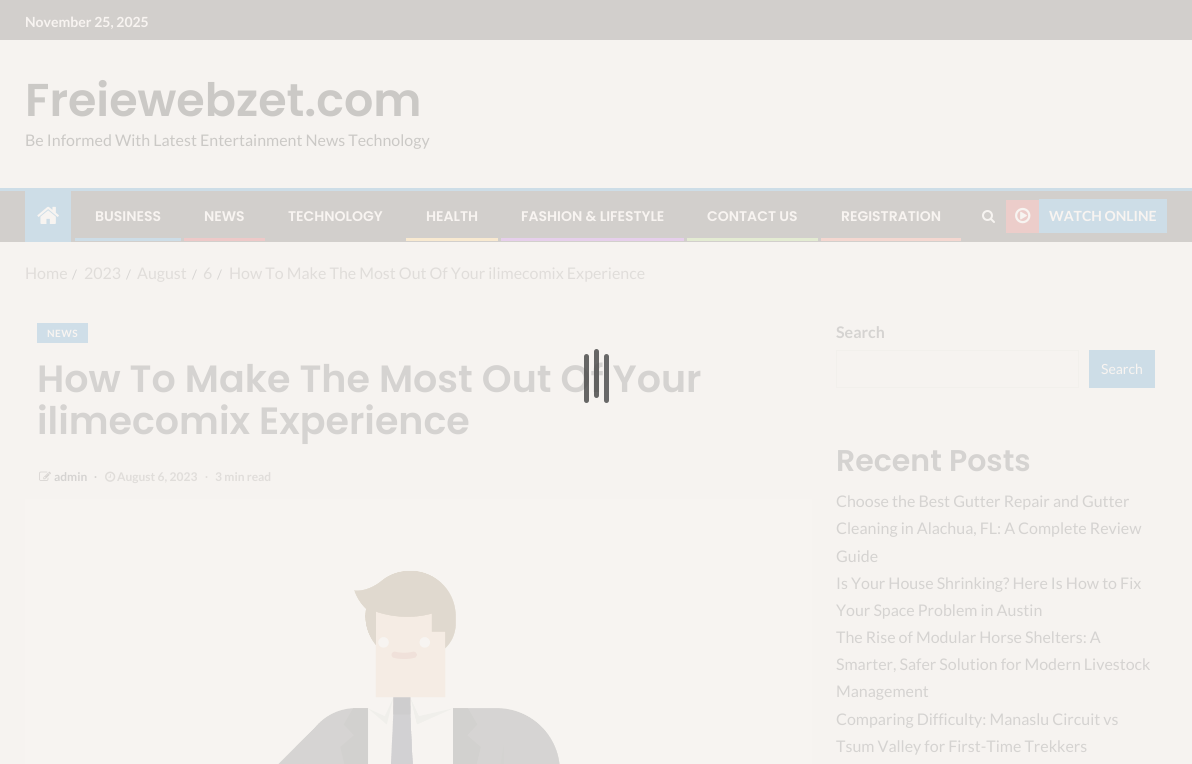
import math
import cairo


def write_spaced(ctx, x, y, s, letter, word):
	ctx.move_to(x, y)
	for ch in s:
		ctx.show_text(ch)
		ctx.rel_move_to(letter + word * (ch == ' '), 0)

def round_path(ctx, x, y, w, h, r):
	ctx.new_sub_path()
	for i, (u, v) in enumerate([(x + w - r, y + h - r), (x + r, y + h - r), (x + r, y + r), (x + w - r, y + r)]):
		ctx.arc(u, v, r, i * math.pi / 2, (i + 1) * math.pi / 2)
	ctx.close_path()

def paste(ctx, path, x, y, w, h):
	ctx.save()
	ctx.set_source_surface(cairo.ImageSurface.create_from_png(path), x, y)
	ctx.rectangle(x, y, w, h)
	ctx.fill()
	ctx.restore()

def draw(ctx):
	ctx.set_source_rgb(0.961, 0.953, 0.941)
	ctx.paint()
	ctx.set_source_rgb(0.824, 0.812, 0.8)
	ctx.rectangle(0, 0, 1192, 40)
	ctx.fill()
	ctx.select_font_face('Lato', cairo.FONT_SLANT_NORMAL, cairo.FONT_WEIGHT_BOLD)
	ctx.set_font_size(14)
	ctx.set_source_rgb(0.969, 0.957, 0.945)
	ctx.move_to(25, 27)
	ctx.show_text('November 25, 2025')
	ctx.select_font_face('Poppins SemiBold')
	ctx.set_font_size(46)
	ctx.set_source_rgb(0.796, 0.788, 0.776)
	ctx.move_to(25, 116)
	ctx.show_text('Freiewebzet.com')
	ctx.select_font_face('Lato')
	ctx.set_font_size(16)
	ctx.move_to(25, 146)
	ctx.show_text('Be Informed With Latest Entertainment News Technology')
	ctx.set_source_rgb(0.824, 0.812, 0.8)
	ctx.rectangle(0, 191, 1192, 51)
	ctx.fill()
	ctx.set_source_rgb(0.804, 0.867, 0.906)
	ctx.rectangle(0, 188, 1192, 3)
	ctx.rectangle(25, 191, 46, 51)
	ctx.fill()
	paste(ctx, 'media/1.png', 37, 206, 22, 18)
	ctx.select_font_face('Poppins SemiBold')
	ctx.set_font_size(14)
	ctx.set_source_rgb(0.969, 0.957, 0.945)
	ctx.move_to(95, 221)
	ctx.show_text('BUSINESS')
	ctx.set_source_rgb(0.804, 0.867, 0.906)
	ctx.rectangle(75, 238, 106, 3)
	ctx.fill()
	ctx.set_source_rgb(0.969, 0.957, 0.945)
	ctx.move_to(204, 221)
	ctx.show_text('NEWS')
	ctx.set_source_rgb(0.933, 0.788, 0.784)
	ctx.rectangle(184, 238, 81, 3)
	ctx.fill()
	ctx.set_source_rgb(0.969, 0.957, 0.945)
	ctx.move_to(288, 221)
	ctx.show_text('TECHNOLOGY')
	ctx.move_to(426, 221)
	ctx.show_text('HEALTH')
	ctx.set_source_rgb(0.969, 0.914, 0.816)
	ctx.rectangle(406, 238, 92, 3)
	ctx.fill()
	ctx.set_source_rgb(0.969, 0.957, 0.945)
	ctx.move_to(521, 221)
	ctx.show_text('FASHION & LIFESTYLE')
	ctx.set_source_rgb(0.902, 0.812, 0.918)
	ctx.rectangle(501, 238, 183, 3)
	ctx.fill()
	ctx.set_source_rgb(0.969, 0.957, 0.945)
	ctx.move_to(707, 221)
	ctx.show_text('CONTACT US')
	ctx.set_source_rgb(0.89, 0.918, 0.824)
	ctx.rectangle(687, 238, 131, 3)
	ctx.fill()
	ctx.set_source_rgb(0.969, 0.957, 0.945)
	ctx.move_to(841, 221)
	ctx.show_text('REGISTRATION')
	ctx.set_source_rgb(0.957, 0.843, 0.816)
	ctx.rectangle(821, 238, 140, 3)
	ctx.fill()
	paste(ctx, 'media/2.png', 982, 210, 13, 13)
	ctx.set_source_rgb(0.922, 0.804, 0.792)
	ctx.rectangle(1006, 200, 33, 33)
	ctx.fill()
	paste(ctx, 'media/3.png', 1015, 207, 16, 17)
	ctx.set_source_rgb(0.804, 0.867, 0.906)
	ctx.rectangle(1039, 199, 128, 34)
	ctx.fill()
	ctx.select_font_face('Lato', cairo.FONT_SLANT_NORMAL, cairo.FONT_WEIGHT_BOLD)
	ctx.set_source_rgb(0.969, 0.957, 0.945)
	ctx.move_to(1049, 221)
	ctx.show_text('WATCH ONLINE')
	ctx.select_font_face('Lato')
	ctx.set_font_size(16)
	ctx.set_source_rgb(0.878, 0.867, 0.855)
	ctx.move_to(25, 279)
	ctx.show_text('Home')
	ctx.set_font_size(13)
	ctx.set_source_rgb(0.835, 0.827, 0.82)
	ctx.move_to(72, 279)
	ctx.show_text('/')
	ctx.set_font_size(16)
	ctx.set_source_rgb(0.878, 0.867, 0.855)
	ctx.move_to(84, 279)
	ctx.show_text('2023')
	ctx.set_font_size(13)
	ctx.set_source_rgb(0.835, 0.827, 0.82)
	ctx.move_to(126, 279)
	ctx.show_text('/')
	ctx.set_font_size(16)
	ctx.set_source_rgb(0.878, 0.867, 0.855)
	ctx.move_to(137, 279)
	ctx.show_text('August')
	ctx.set_font_size(13)
	ctx.set_source_rgb(0.835, 0.827, 0.82)
	ctx.move_to(192, 279)
	ctx.show_text('/')
	ctx.set_font_size(16)
	ctx.set_source_rgb(0.878, 0.867, 0.855)
	ctx.move_to(203, 279)
	ctx.show_text('6')
	ctx.set_font_size(13)
	ctx.set_source_rgb(0.835, 0.827, 0.82)
	ctx.move_to(217, 279)
	ctx.show_text('/')
	ctx.set_font_size(16)
	ctx.set_source_rgb(0.878, 0.867, 0.855)
	ctx.move_to(229, 279)
	ctx.show_text('How To Make The Most Out Of Your ilimecomix Experience')
	ctx.set_source_rgb(0.812, 0.871, 0.91)
	ctx.rectangle(37, 323, 51, 20)
	ctx.fill()
	ctx.select_font_face('Lato', cairo.FONT_SLANT_NORMAL, cairo.FONT_WEIGHT_BOLD)
	ctx.set_font_size(10)
	ctx.set_source_rgb(0.969, 0.957, 0.945)
	write_spaced(ctx, 47, 337, 'NEWS', 0.5, 0)
	ctx.select_font_face('Poppins SemiBold')
	ctx.set_font_size(38)
	ctx.set_source_rgb(0.835, 0.827, 0.82)
	ctx.move_to(37, 392)
	ctx.show_text('How To Make The Most Out Of Your')
	ctx.move_to(37, 434)
	ctx.show_text('ilimecomix Experience')
	paste(ctx, 'media/4.png', 39, 471, 12, 10)
	ctx.select_font_face('Lato', cairo.FONT_SLANT_NORMAL, cairo.FONT_WEIGHT_BOLD)
	ctx.set_font_size(12)
	ctx.move_to(54, 481)
	ctx.show_text('admin')
	ctx.select_font_face('Liberation Serif', cairo.FONT_SLANT_NORMAL, cairo.FONT_WEIGHT_BOLD)
	ctx.move_to(94, 481)
	ctx.show_text('∙')
	paste(ctx, 'media/5.png', 105, 471, 11, 11)
	ctx.select_font_face('Lato', cairo.FONT_SLANT_NORMAL, cairo.FONT_WEIGHT_BOLD)
	ctx.set_source_rgb(0.878, 0.867, 0.855)
	ctx.move_to(117, 481)
	ctx.show_text('August 6, 2023')
	ctx.select_font_face('Liberation Serif', cairo.FONT_SLANT_NORMAL, cairo.FONT_WEIGHT_BOLD)
	ctx.move_to(205, 481)
	ctx.show_text('∙')
	ctx.select_font_face('Lato', cairo.FONT_SLANT_NORMAL, cairo.FONT_WEIGHT_BOLD)
	ctx.move_to(215, 481)
	ctx.show_text('3 min read')
	paste(ctx, 'media/6.png', 25, 499, 787, 265)
	ctx.set_font_size(16)
	ctx.set_source_rgb(0.835, 0.827, 0.82)
	ctx.move_to(836, 338)
	ctx.show_text('Search')
	ctx.rectangle(836.5, 350.5, 242, 37)
	ctx.set_source_rgb(0.949, 0.941, 0.925)
	ctx.set_line_width(1)
	ctx.stroke()
	ctx.set_source_rgb(0.804, 0.867, 0.906)
	ctx.rectangle(1089, 350, 66, 38)
	ctx.fill()
	ctx.select_font_face('Lato')
	ctx.set_font_size(14)
	ctx.set_source_rgb(0.969, 0.957, 0.945)
	ctx.move_to(1101, 374)
	ctx.show_text('Search')
	ctx.select_font_face('Poppins SemiBold')
	ctx.set_font_size(30)
	ctx.set_source_rgb(0.835, 0.827, 0.82)
	ctx.move_to(836, 471)
	ctx.show_text('Recent Posts')
	ctx.select_font_face('Lato')
	ctx.set_font_size(16)
	for x, y, s in [
		(836, 507, 'Choose the Best Gutter Repair and Gutter'),
		(836, 534, 'Cleaning in Alachua, FL: A Complete Review'),
		(836, 562, 'Guide'),
		(836, 589, 'Is Your House Shrinking? Here Is How to Fix'),
		(836, 616, 'Your Space Problem in Austin'),
		(836, 643, 'The Rise of Modular Horse Shelters: A'),
		(836, 670, 'Smarter, Safer Solution for Modern Livestock'),
		(836, 697, 'Management'),
		(836, 725, 'Comparing Difficulty: Manaslu Circuit vs'),
		(836, 752, 'Tsum Valley for First-Time Trekkers'),
	]:
		ctx.move_to(x, y)
		ctx.show_text(s)
	ctx.set_source_rgba(0.29, 0.29, 0.29, 0.83)
	round_path(ctx, 594, 349, 5, 49, 2.5)
	ctx.fill()
	round_path(ctx, 584, 354, 5, 49, 2.5)
	ctx.fill()
	ctx.set_source_rgb(0.408, 0.408, 0.408)
	round_path(ctx, 604, 354, 5, 49, 2.5)
	ctx.fill()


surface = cairo.ImageSurface(cairo.FORMAT_RGB24, 1192, 764)
ctx = cairo.Context(surface)
options = cairo.FontOptions()
options.set_hint_metrics(cairo.HINT_METRICS_OFF)
options.set_hint_style(cairo.HINT_STYLE_NONE)
ctx.set_font_options(options)
ctx.set_miter_limit(4)
draw(ctx)
surface.write_to_png('image.png')
